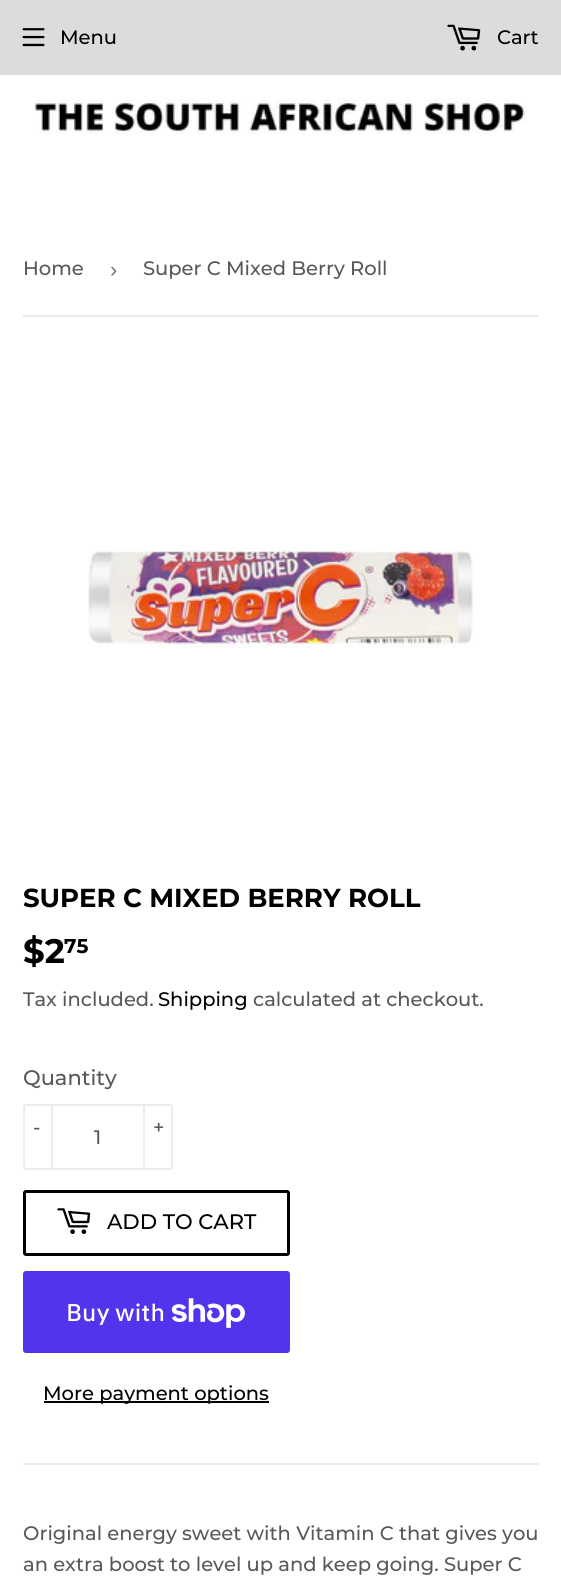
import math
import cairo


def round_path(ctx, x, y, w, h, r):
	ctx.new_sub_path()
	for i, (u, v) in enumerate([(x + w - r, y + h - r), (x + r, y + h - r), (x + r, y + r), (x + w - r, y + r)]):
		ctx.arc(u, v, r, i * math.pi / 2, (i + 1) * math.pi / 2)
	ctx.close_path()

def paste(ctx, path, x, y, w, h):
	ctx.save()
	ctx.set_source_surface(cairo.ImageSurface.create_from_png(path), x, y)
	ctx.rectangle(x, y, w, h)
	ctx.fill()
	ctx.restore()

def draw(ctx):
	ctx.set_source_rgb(1, 1, 1)
	ctx.paint()
	ctx.set_source_rgb(0.863, 0.863, 0.863)
	ctx.rectangle(0, 0, 561, 75)
	ctx.fill()
	paste(ctx, 'media/1.png', 22, 28, 23, 19)
	ctx.select_font_face('Montserrat Medium')
	ctx.set_font_size(19.5)
	ctx.set_source_rgb(0, 0, 0)
	ctx.move_to(60, 44)
	ctx.show_text('Menu')
	paste(ctx, 'media/2.png', 447, 24, 34, 27)
	ctx.move_to(497, 44)
	ctx.show_text('Cart')
	paste(ctx, 'media/3.png', 35, 75, 492, 59)
	ctx.set_source_rgb(0.925, 0.925, 0.925)
	ctx.rectangle(23, 315, 516, 2)
	ctx.fill()
	ctx.set_source_rgb(0.345, 0.345, 0.345)
	ctx.move_to(23, 275)
	ctx.show_text('Home')
	ctx.select_font_face('Liberation Sans')
	ctx.set_font_size(22)
	ctx.set_source_rgb(0.463, 0.463, 0.463)
	ctx.move_to(110, 277)
	ctx.show_text('›')
	ctx.select_font_face('Montserrat Medium')
	ctx.set_font_size(19.5)
	ctx.set_source_rgb(0.345, 0.345, 0.345)
	ctx.move_to(143, 275)
	ctx.show_text('Super C Mixed Berry Roll')
	paste(ctx, 'media/4.png', 88, 545, 386, 103)
	ctx.select_font_face('Montserrat', cairo.FONT_SLANT_NORMAL, cairo.FONT_WEIGHT_BOLD)
	ctx.set_font_size(26)
	ctx.set_source_rgb(0, 0, 0)
	ctx.move_to(23, 907)
	ctx.show_text('SUPER C MIXED BERRY ROLL')
	ctx.set_font_size(34)
	ctx.move_to(23, 963)
	ctx.show_text('$2')
	ctx.set_font_size(20)
	ctx.move_to(64, 953)
	ctx.show_text('75')
	ctx.select_font_face('Montserrat Medium')
	ctx.set_font_size(19.5)
	ctx.set_source_rgb(0.345, 0.345, 0.345)
	ctx.move_to(23, 1006)
	ctx.show_text('Tax included.')
	ctx.set_source_rgb(0, 0, 0)
	ctx.move_to(158, 1006)
	ctx.show_text('Shipping')
	ctx.set_source_rgb(0.345, 0.345, 0.345)
	ctx.move_to(253, 1006)
	ctx.show_text('calculated at checkout.')
	ctx.set_font_size(21)
	ctx.move_to(23, 1085)
	ctx.show_text('Quantity')
	round_path(ctx, 24, 1105, 148, 64, 2)
	ctx.set_source_rgb(0.925, 0.925, 0.925)
	ctx.stroke()
	ctx.rectangle(51, 1104, 2, 66)
	ctx.fill()
	ctx.set_font_size(19.5)
	ctx.set_source_rgb(0.345, 0.345, 0.345)
	ctx.move_to(33, 1134)
	ctx.show_text('-')
	ctx.set_source_rgb(0.925, 0.925, 0.925)
	ctx.rectangle(143, 1104, 2, 66)
	ctx.fill()
	ctx.set_source_rgb(0.345, 0.345, 0.345)
	ctx.move_to(153, 1134)
	ctx.show_text('+')
	ctx.move_to(94, 1144)
	ctx.show_text('1')
	round_path(ctx, 24.5, 1191.5, 264, 63, 1.5)
	ctx.set_source_rgb(0, 0, 0)
	ctx.set_line_width(3)
	ctx.stroke()
	paste(ctx, 'media/5.png', 57, 1208, 34, 26)
	ctx.set_font_size(21)
	ctx.move_to(107, 1229)
	ctx.show_text('ADD TO CART')
	ctx.set_source_rgb(0.329, 0.2, 0.922)
	round_path(ctx, 23, 1271, 267, 82, 3)
	ctx.fill()
	ctx.select_font_face('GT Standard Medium')
	ctx.set_font_size(24)
	ctx.set_source_rgb(1, 1, 1)
	ctx.move_to(66, 1321)
	ctx.show_text('Buy with')
	paste(ctx, 'media/6.png', 171, 1298, 74, 30)
	ctx.set_source_rgb(0, 0, 0)
	ctx.rectangle(44, 1401, 225, 2)
	ctx.fill()
	ctx.select_font_face('Montserrat Medium')
	ctx.set_font_size(19.5)
	ctx.move_to(43, 1400)
	ctx.show_text('More payment options')
	ctx.set_source_rgb(0.925, 0.925, 0.925)
	ctx.rectangle(23, 1463, 516, 2)
	ctx.fill()
	ctx.set_source_rgb(0.345, 0.345, 0.345)
	ctx.move_to(23, 1540)
	ctx.show_text('Original energy sweet with Vitamin C that gives you')
	ctx.move_to(23, 1571)
	ctx.show_text('an extra boost to level up and keep going. Super C')


surface = cairo.ImageSurface(cairo.FORMAT_RGB24, 561, 1577)
ctx = cairo.Context(surface)
options = cairo.FontOptions()
options.set_hint_metrics(cairo.HINT_METRICS_OFF)
options.set_hint_style(cairo.HINT_STYLE_NONE)
ctx.set_font_options(options)
ctx.set_miter_limit(4)
draw(ctx)
surface.write_to_png('image.png')
